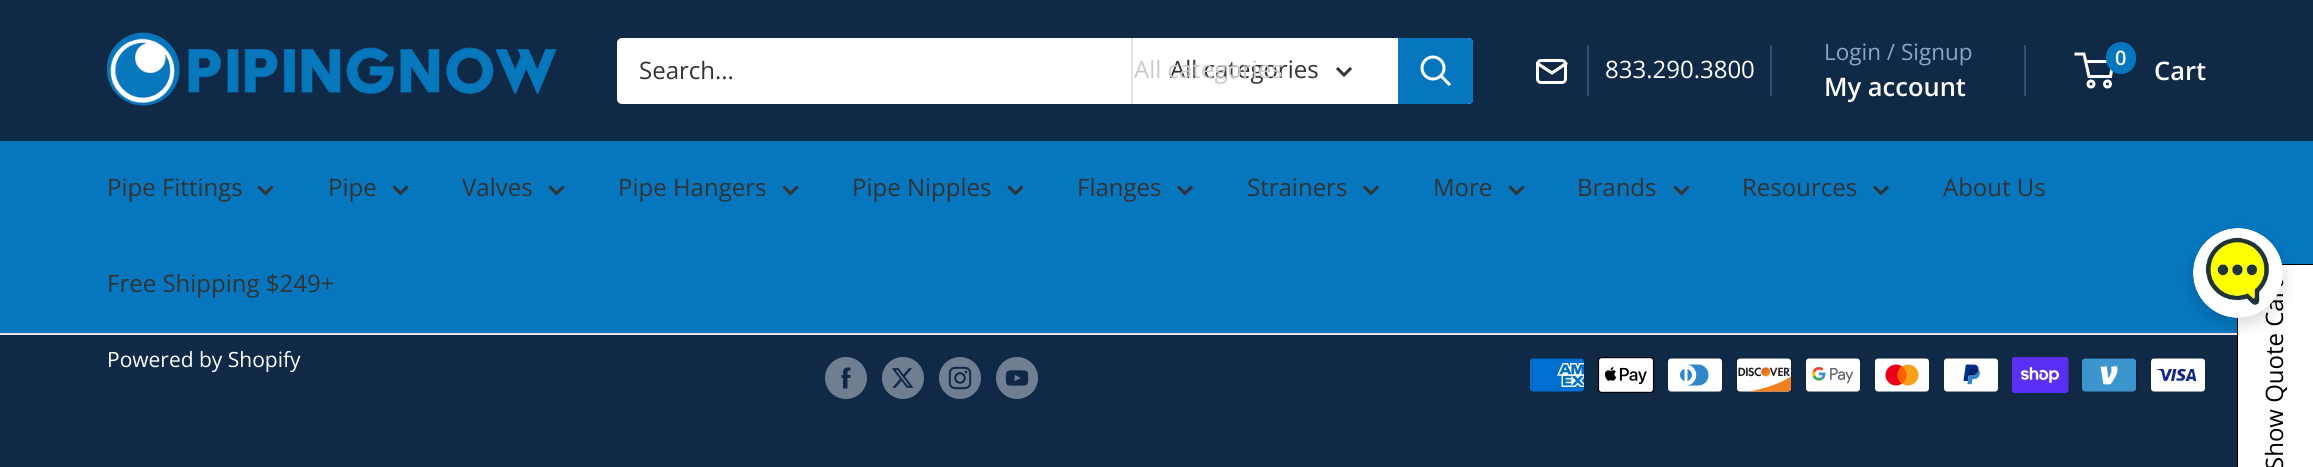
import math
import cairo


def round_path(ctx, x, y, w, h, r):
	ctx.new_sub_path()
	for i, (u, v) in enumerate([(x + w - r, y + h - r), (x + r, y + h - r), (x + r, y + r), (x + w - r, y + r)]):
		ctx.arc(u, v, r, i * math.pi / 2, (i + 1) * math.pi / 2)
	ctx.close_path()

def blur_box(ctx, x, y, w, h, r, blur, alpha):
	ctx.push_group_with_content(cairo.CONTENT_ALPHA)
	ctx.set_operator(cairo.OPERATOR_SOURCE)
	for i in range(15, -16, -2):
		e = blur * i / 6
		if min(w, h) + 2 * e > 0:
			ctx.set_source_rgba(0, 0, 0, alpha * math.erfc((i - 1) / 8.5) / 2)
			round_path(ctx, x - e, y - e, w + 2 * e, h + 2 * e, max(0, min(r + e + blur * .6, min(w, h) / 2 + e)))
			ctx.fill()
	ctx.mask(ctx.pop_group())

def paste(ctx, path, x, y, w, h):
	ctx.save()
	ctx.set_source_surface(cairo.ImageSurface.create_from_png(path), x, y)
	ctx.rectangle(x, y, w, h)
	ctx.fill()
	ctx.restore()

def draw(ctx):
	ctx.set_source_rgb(0.059, 0.161, 0.278)
	ctx.paint()
	paste(ctx, 'media/1.png', 107, 32, 450, 74)
	ctx.set_source_rgb(1, 1, 1)
	round_path(ctx, 617, 38, 856, 66, 5)
	ctx.fill()
	ctx.select_font_face('Open Sans')
	ctx.set_font_size(24)
	ctx.set_source_rgb(0.2, 0.2, 0.2)
	ctx.move_to(639, 79)
	ctx.show_text('Search...')
	ctx.set_source_rgb(0.859, 0.894, 0.937)
	ctx.rectangle(1131, 38, 2, 66)
	ctx.fill()
	ctx.set_source_rgb(0.2, 0.2, 0.2)
	ctx.move_to(1170, 78)
	ctx.show_text('All categories')
	ctx.set_source_rgb(0.796, 0.796, 0.796)
	ctx.move_to(1134, 78)
	ctx.show_text('All categories')
	ctx.new_path()
	ctx.move_to(1350, 69)
	ctx.line_to(1344, 75)
	ctx.line_to(1338, 69)
	ctx.set_source_rgb(0.2, 0.2, 0.2)
	ctx.set_line_width(3)
	ctx.set_line_cap(cairo.LINE_CAP_SQUARE)
	ctx.stroke()
	ctx.set_source_rgb(0.027, 0.467, 0.745)
	ctx.new_path()
	ctx.move_to(1398, 38)
	ctx.line_to(1468, 38)
	ctx.curve_to(1471, 38, 1473, 40, 1473, 43)
	ctx.line_to(1473, 99)
	ctx.curve_to(1473, 102, 1471, 104, 1468, 104)
	ctx.line_to(1398, 104)
	ctx.close_path()
	ctx.fill()
	ctx.new_path()
	ctx.move_to(1449, 84)
	ctx.line_to(1441.5, 76.5)
	ctx.set_source_rgb(1, 1, 1)
	ctx.stroke()
	ctx.arc(1433, 68, 11, 0, 2 * math.pi)
	ctx.set_line_cap(cairo.LINE_CAP_BUTT)
	ctx.stroke()
	round_path(ctx, 1537.5, 60.5, 28, 22, 3.5)
	ctx.stroke()
	ctx.new_path()
	ctx.move_to(1537.5, 63.5)
	ctx.line_to(1552, 73)
	ctx.line_to(1566, 63.5)
	ctx.set_line_width(3.1)
	ctx.set_line_cap(cairo.LINE_CAP_ROUND)
	ctx.set_line_join(cairo.LINE_JOIN_ROUND)
	ctx.stroke()
	ctx.set_source_rgb(0.2, 0.31, 0.431)
	ctx.rectangle(1587, 45, 2, 51)
	ctx.fill()
	ctx.set_source_rgb(0.996, 0.996, 0.996)
	ctx.move_to(1605, 78)
	ctx.show_text('833.290.3800')
	ctx.set_source_rgb(0.2, 0.31, 0.431)
	ctx.rectangle(1770, 45, 2, 51)
	ctx.fill()
	ctx.set_font_size(22.5)
	ctx.set_source_rgb(0.529, 0.651, 0.788)
	ctx.move_to(1824, 60)
	ctx.show_text('Login / Signup')
	ctx.set_source_rgb(0.2, 0.31, 0.431)
	ctx.rectangle(2024, 45, 2, 51)
	ctx.fill()
	ctx.select_font_face('Open Sans SemiBold')
	ctx.set_font_size(25.5)
	ctx.set_source_rgb(0.996, 0.996, 0.996)
	ctx.move_to(1824, 96)
	ctx.show_text('My account')
	ctx.new_path()
	ctx.arc(2091, 84, 3, 0, 2 * math.pi)
	ctx.set_source_rgb(1, 1, 1)
	ctx.set_line_width(3)
	ctx.set_line_cap(cairo.LINE_CAP_BUTT)
	ctx.set_line_join(cairo.LINE_JOIN_MITER)
	ctx.stroke()
	ctx.arc(2107.5, 84, 3, 0, 2 * math.pi)
	ctx.stroke()
	ctx.new_path()
	ctx.move_to(2085.5, 61.5)
	ctx.line_to(2113, 61.5)
	ctx.line_to(2110.5, 76.5)
	ctx.line_to(2089, 76.5)
	ctx.line_to(2084, 54)
	ctx.line_to(2074.5, 54)
	ctx.stroke()
	ctx.set_source_rgb(0.027, 0.467, 0.745)
	round_path(ctx, 2106, 42, 30, 32, 15)
	ctx.fill()
	ctx.set_font_size(20)
	ctx.set_source_rgb(0.996, 0.996, 0.996)
	ctx.move_to(2115, 65)
	ctx.show_text('0')
	ctx.set_font_size(25.5)
	ctx.move_to(2154, 80)
	ctx.show_text('Cart')
	ctx.set_source_rgb(0.894, 0.894, 0.894)
	ctx.rectangle(0, 333, 2237, 2)
	ctx.fill()
	ctx.set_source_rgb(0.027, 0.467, 0.745)
	ctx.rectangle(0, 141, 2313, 192)
	ctx.fill()
	ctx.select_font_face('Open Sans')
	ctx.set_font_size(24)
	ctx.set_source_rgb(0.2, 0.2, 0.2)
	ctx.move_to(107, 196)
	ctx.show_text('Pipe Fittings')
	ctx.new_path()
	ctx.move_to(271.5, 187.5)
	ctx.line_to(265.5, 193.5)
	ctx.line_to(259.5, 187.5)
	ctx.set_line_cap(cairo.LINE_CAP_SQUARE)
	ctx.stroke()
	ctx.move_to(328, 196)
	ctx.show_text('Pipe')
	ctx.new_path()
	ctx.move_to(406.5, 187.5)
	ctx.line_to(400.5, 193.5)
	ctx.line_to(394.5, 187.5)
	ctx.stroke()
	ctx.move_to(462, 196)
	ctx.show_text('Valves')
	ctx.new_path()
	ctx.move_to(562.5, 187.5)
	ctx.line_to(556.5, 193.5)
	ctx.line_to(550.5, 187.5)
	ctx.stroke()
	ctx.move_to(618, 196)
	ctx.show_text('Pipe Hangers')
	ctx.new_path()
	ctx.move_to(796.5, 187.5)
	ctx.line_to(790.5, 193.5)
	ctx.line_to(784.5, 187.5)
	ctx.stroke()
	ctx.move_to(852, 196)
	ctx.show_text('Pipe Nipples')
	ctx.new_path()
	ctx.move_to(1021.5, 187.5)
	ctx.line_to(1015.5, 193.5)
	ctx.line_to(1009.5, 187.5)
	ctx.stroke()
	ctx.move_to(1077, 196)
	ctx.show_text('Flanges')
	ctx.new_path()
	ctx.move_to(1191, 187.5)
	ctx.line_to(1185, 193.5)
	ctx.line_to(1179, 187.5)
	ctx.stroke()
	ctx.move_to(1247, 196)
	ctx.show_text('Strainers')
	ctx.new_path()
	ctx.move_to(1377, 187.5)
	ctx.line_to(1371, 193.5)
	ctx.line_to(1365, 187.5)
	ctx.stroke()
	ctx.move_to(1433, 196)
	ctx.show_text('More')
	ctx.new_path()
	ctx.move_to(1522.5, 187.5)
	ctx.line_to(1516.5, 193.5)
	ctx.line_to(1510.5, 187.5)
	ctx.stroke()
	ctx.move_to(1577, 196)
	ctx.show_text('Brands')
	ctx.new_path()
	ctx.move_to(1687.5, 187.5)
	ctx.line_to(1681.5, 193.5)
	ctx.line_to(1675.5, 187.5)
	ctx.stroke()
	ctx.move_to(1742, 196)
	ctx.show_text('Resources')
	ctx.new_path()
	ctx.move_to(1887, 187.5)
	ctx.line_to(1881, 193.5)
	ctx.line_to(1875, 187.5)
	ctx.stroke()
	ctx.move_to(1943, 196)
	ctx.show_text('About Us')
	ctx.move_to(107, 292)
	ctx.show_text('Free Shipping $249+')
	ctx.set_source_rgb(1, 1, 1)
	ctx.new_path()
	ctx.move_to(2237, 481)
	ctx.line_to(2237, 270)
	ctx.curve_to(2237, 266, 2239, 264, 2243, 264)
	ctx.line_to(2313, 264)
	ctx.line_to(2313, 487)
	ctx.line_to(2243, 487)
	ctx.curve_to(2239, 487, 2237, 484, 2237, 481)
	ctx.close_path()
	ctx.fill()
	ctx.set_source_rgb(0, 0, 0)
	ctx.set_fill_rule(cairo.FILL_RULE_EVEN_ODD)
	ctx.new_path()
	ctx.move_to(2237, 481)
	ctx.line_to(2237, 270)
	ctx.curve_to(2237, 266, 2239, 264, 2243, 264)
	ctx.line_to(2313, 264)
	ctx.line_to(2313, 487)
	ctx.line_to(2243, 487)
	ctx.curve_to(2239, 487, 2237, 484, 2237, 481)
	ctx.close_path()
	ctx.move_to(2238, 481)
	ctx.line_to(2238, 270)
	ctx.curve_to(2238, 267, 2240, 265, 2243, 265)
	ctx.line_to(2313, 265)
	ctx.line_to(2313, 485)
	ctx.line_to(2243, 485)
	ctx.curve_to(2240, 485, 2238, 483, 2238, 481)
	ctx.close_path()
	ctx.fill()
	ctx.set_source_rgb(0, 0, 0)
	blur_box(ctx, 2193, 234, 90, 90, 45, 7.5, 0.15)
	ctx.set_source_rgb(0, 0, 0)
	ctx.save()
	ctx.translate(2283, 470)
	ctx.rotate(-90 * math.pi / 180)
	ctx.move_to(0, 0)
	ctx.show_text('Show Quote Cart')
	ctx.restore()
	paste(ctx, 'media/2.png', 2193, 228, 90, 90)
	ctx.set_font_size(21)
	ctx.set_source_rgb(0.996, 0.996, 0.996)
	ctx.move_to(107, 367)
	ctx.show_text('Powered by Shopify')
	paste(ctx, 'media/3.png', 825, 357, 42, 42)
	paste(ctx, 'media/4.png', 882, 357, 42, 42)
	paste(ctx, 'media/5.png', 939, 357, 42, 42)
	paste(ctx, 'media/6.png', 996, 357, 42, 42)
	paste(ctx, 'media/7.png', 1529, 357, 56, 36)
	paste(ctx, 'media/8.png', 1598, 357, 57, 36)
	paste(ctx, 'media/9.png', 1667, 357, 56, 36)
	paste(ctx, 'media/10.png', 1736, 357, 56, 36)
	paste(ctx, 'media/11.png', 1805, 357, 56, 36)
	paste(ctx, 'media/12.png', 1874, 357, 56, 36)
	paste(ctx, 'media/13.png', 1943, 357, 56, 36)
	paste(ctx, 'media/14.png', 2012, 357, 57, 36)
	paste(ctx, 'media/15.png', 2081, 357, 57, 36)
	paste(ctx, 'media/16.png', 2150, 357, 56, 36)


surface = cairo.ImageSurface(cairo.FORMAT_RGB24, 2313, 467)
ctx = cairo.Context(surface)
options = cairo.FontOptions()
options.set_hint_metrics(cairo.HINT_METRICS_OFF)
options.set_hint_style(cairo.HINT_STYLE_NONE)
ctx.set_font_options(options)
ctx.set_miter_limit(4)
draw(ctx)
surface.write_to_png('image.png')
